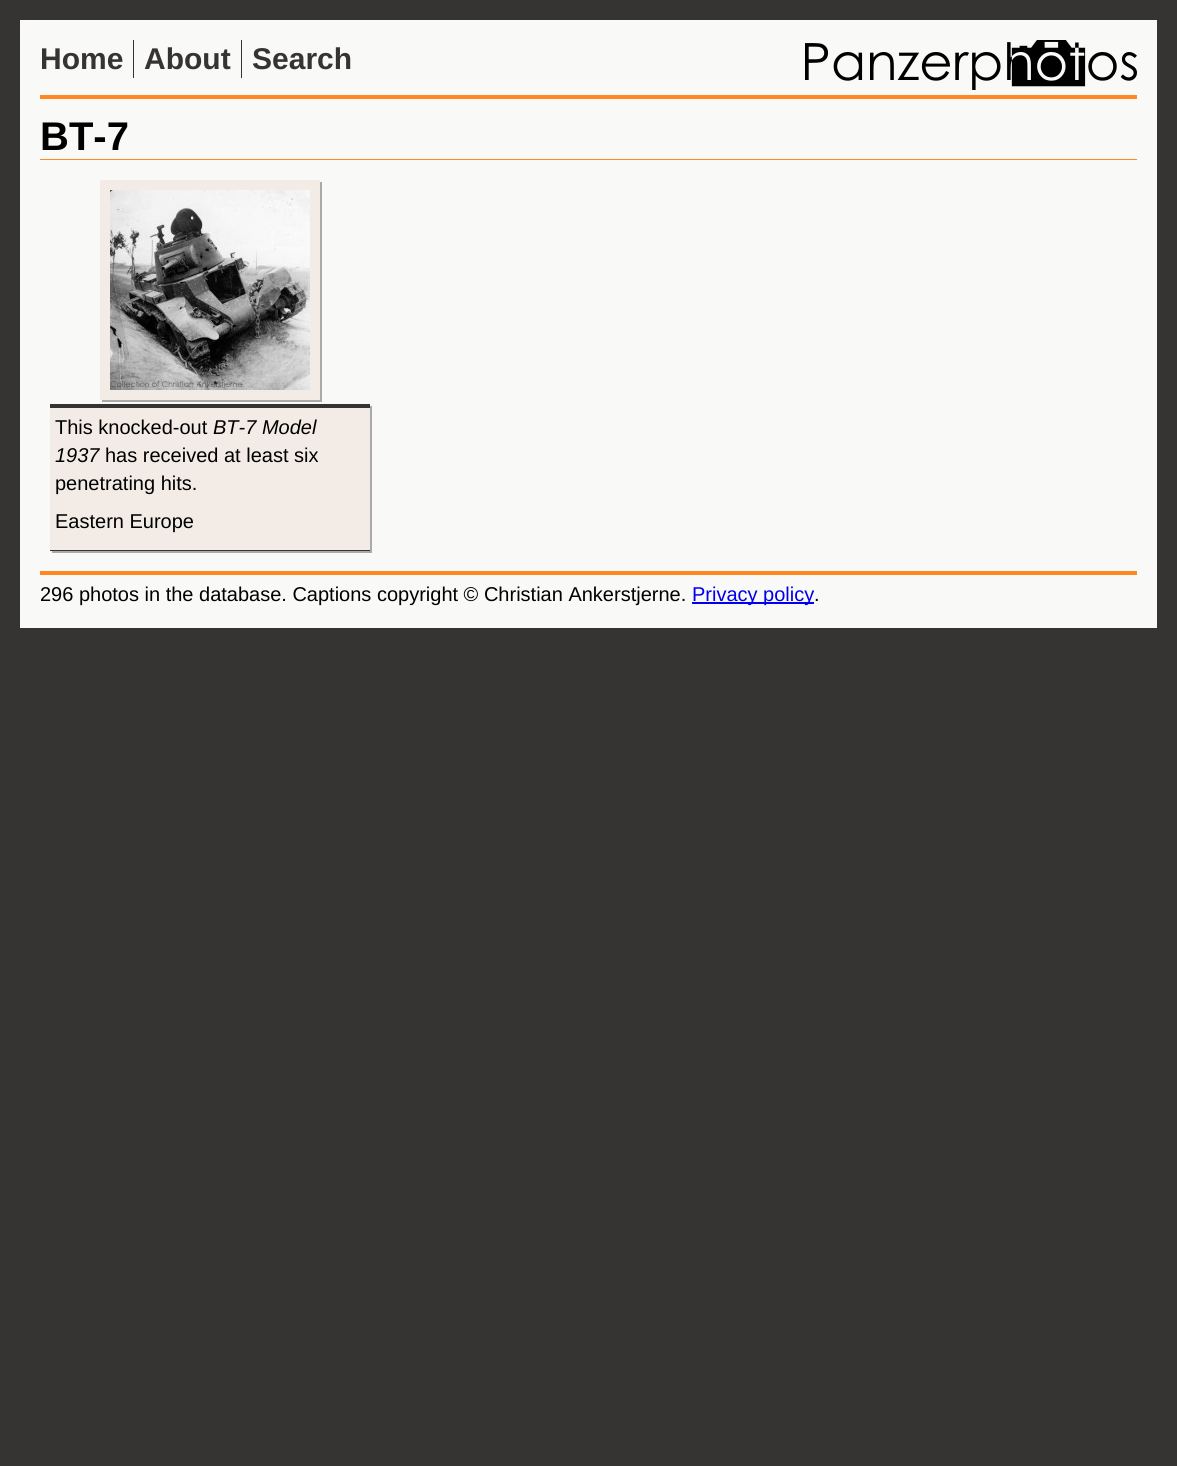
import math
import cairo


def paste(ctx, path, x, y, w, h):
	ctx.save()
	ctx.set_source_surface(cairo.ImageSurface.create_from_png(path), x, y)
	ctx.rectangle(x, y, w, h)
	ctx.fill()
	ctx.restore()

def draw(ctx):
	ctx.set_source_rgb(0.212, 0.2, 0.2)
	ctx.paint()
	ctx.set_source_rgb(0.976, 0.976, 0.965)
	ctx.rectangle(20, 20, 1137, 608)
	ctx.fill()
	paste(ctx, 'media/1.png', 805, 40, 332, 50)
	ctx.set_source_rgb(1, 0.533, 0.133)
	ctx.rectangle(40, 95, 1097, 4)
	ctx.fill()
	ctx.set_source_rgb(0.212, 0.2, 0.2)
	ctx.rectangle(133, 40, 1, 38)
	ctx.fill()
	ctx.select_font_face('Liberation Sans', cairo.FONT_SLANT_NORMAL, cairo.FONT_WEIGHT_BOLD)
	ctx.set_font_size(30)
	ctx.move_to(40, 69)
	ctx.show_text('Home')
	ctx.rectangle(241, 40, 1, 38)
	ctx.fill()
	ctx.move_to(144, 69)
	ctx.show_text('About')
	ctx.move_to(252, 69)
	ctx.show_text('Search')
	ctx.set_source_rgb(1, 0.533, 0.133)
	ctx.rectangle(40, 159, 1097, 1)
	ctx.fill()
	ctx.set_font_size(40)
	ctx.set_source_rgb(0, 0, 0)
	ctx.move_to(40, 150)
	ctx.show_text('BT-7')
	ctx.set_source_rgb(0.667, 0.667, 0.667)
	ctx.new_path()
	ctx.move_to(102, 400)
	ctx.line_to(102, 402)
	ctx.line_to(322, 402)
	ctx.line_to(322, 182)
	ctx.line_to(320, 182)
	ctx.line_to(320, 400)
	ctx.close_path()
	ctx.fill()
	ctx.rectangle(105, 185, 210, 210)
	ctx.set_source_rgb(0.953, 0.925, 0.902)
	ctx.set_line_width(10)
	ctx.stroke()
	paste(ctx, 'media/2.png', 110, 190, 200, 200)
	ctx.set_source_rgb(0.667, 0.667, 0.667)
	ctx.new_path()
	ctx.move_to(52, 551)
	ctx.line_to(52, 553)
	ctx.line_to(372, 553)
	ctx.line_to(372, 406)
	ctx.line_to(370, 406)
	ctx.line_to(370, 551)
	ctx.close_path()
	ctx.fill()
	ctx.set_source_rgb(0.953, 0.925, 0.902)
	ctx.rectangle(50, 408, 320, 142)
	ctx.fill()
	ctx.set_source_rgb(0.212, 0.2, 0.2)
	ctx.rectangle(50, 404, 320, 4)
	ctx.rectangle(50, 550, 320, 1)
	ctx.fill()
	ctx.select_font_face('Liberation Sans')
	ctx.set_font_size(20)
	ctx.set_source_rgb(0, 0, 0)
	ctx.move_to(55, 434)
	ctx.show_text('This knocked-out')
	ctx.select_font_face('Liberation Sans', cairo.FONT_SLANT_ITALIC)
	ctx.move_to(213, 434)
	ctx.show_text('BT-7 Model')
	ctx.move_to(55, 462)
	ctx.show_text('1937')
	ctx.select_font_face('Liberation Sans')
	for x, y, s in [
		(105, 462, 'has received at least six'),
		(55, 490, 'penetrating hits.'),
		(55, 528, 'Eastern Europe'),
	]:
		ctx.move_to(x, y)
		ctx.show_text(s)
	ctx.set_source_rgb(1, 0.533, 0.133)
	ctx.rectangle(40, 571, 1097, 4)
	ctx.fill()
	ctx.set_source_rgb(0, 0, 0)
	ctx.move_to(40, 601)
	ctx.show_text('296 photos in the database. Captions copyright © Christian Ankerstjerne.')
	ctx.set_source_rgb(0, 0, 0.933)
	ctx.rectangle(692, 602, 122, 2)
	ctx.fill()
	ctx.move_to(692, 601)
	ctx.show_text('Privacy policy')
	ctx.set_source_rgb(0, 0, 0)
	ctx.move_to(814, 601)
	ctx.show_text('.')


surface = cairo.ImageSurface(cairo.FORMAT_RGB24, 1177, 1466)
ctx = cairo.Context(surface)
options = cairo.FontOptions()
options.set_hint_metrics(cairo.HINT_METRICS_OFF)
options.set_hint_style(cairo.HINT_STYLE_NONE)
ctx.set_font_options(options)
ctx.set_miter_limit(4)
draw(ctx)
surface.write_to_png('image.png')
